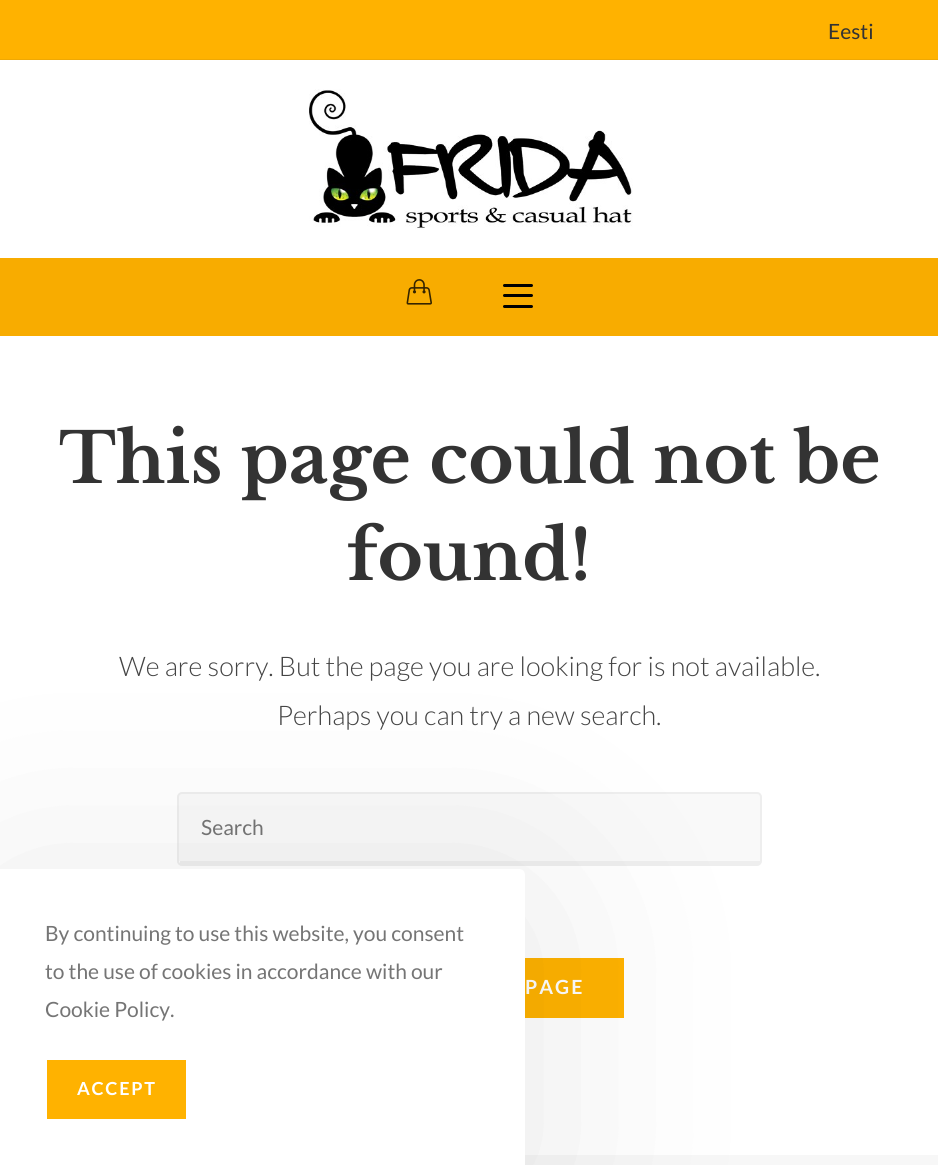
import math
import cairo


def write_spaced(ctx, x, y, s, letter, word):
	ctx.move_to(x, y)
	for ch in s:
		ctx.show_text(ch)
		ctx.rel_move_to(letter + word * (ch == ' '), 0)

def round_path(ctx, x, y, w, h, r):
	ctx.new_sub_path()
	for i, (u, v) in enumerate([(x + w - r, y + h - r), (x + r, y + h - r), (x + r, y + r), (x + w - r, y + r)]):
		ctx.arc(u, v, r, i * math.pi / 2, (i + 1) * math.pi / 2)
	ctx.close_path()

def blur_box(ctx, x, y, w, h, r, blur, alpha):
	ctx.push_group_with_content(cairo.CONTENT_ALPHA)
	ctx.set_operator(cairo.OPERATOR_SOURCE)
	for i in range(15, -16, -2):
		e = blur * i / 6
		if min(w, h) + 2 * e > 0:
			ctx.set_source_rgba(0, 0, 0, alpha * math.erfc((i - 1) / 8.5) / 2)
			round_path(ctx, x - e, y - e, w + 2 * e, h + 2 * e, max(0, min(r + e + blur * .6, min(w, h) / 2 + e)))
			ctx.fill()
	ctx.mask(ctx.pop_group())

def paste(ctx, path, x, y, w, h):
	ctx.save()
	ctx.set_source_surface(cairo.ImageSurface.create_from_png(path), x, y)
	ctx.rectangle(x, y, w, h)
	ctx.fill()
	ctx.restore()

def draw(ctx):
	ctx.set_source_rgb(1, 1, 1)
	ctx.paint()
	ctx.set_source_rgb(1, 0.698, 0)
	ctx.rectangle(0, 0, 938, 59)
	ctx.fill()
	ctx.set_source_rgb(0.937, 0.659, 0.02)
	ctx.rectangle(0, 59, 938, 1)
	ctx.fill()
	ctx.select_font_face('Lato')
	ctx.set_font_size(21)
	ctx.set_source_rgb(0.2, 0.2, 0.2)
	ctx.move_to(828, 39)
	ctx.show_text('Eesti')
	paste(ctx, 'media/1.png', 309, 89, 324, 141)
	ctx.set_source_rgb(0.969, 0.675, 0)
	ctx.rectangle(0, 258, 938, 78)
	ctx.fill()
	paste(ctx, 'media/2.png', 406, 279, 26, 26)
	ctx.set_source_rgb(0, 0, 0)
	round_path(ctx, 503, 284, 30, 3, 1.5)
	ctx.fill()
	round_path(ctx, 503, 294, 30, 3, 1.5)
	ctx.fill()
	round_path(ctx, 503, 305, 30, 3, 1.5)
	ctx.fill()
	ctx.select_font_face('Libre Baskerville', cairo.FONT_SLANT_NORMAL, cairo.FONT_WEIGHT_BOLD)
	ctx.set_font_size(69)
	ctx.set_source_rgb(0.2, 0.2, 0.2)
	ctx.move_to(59, 483)
	ctx.show_text('This page could not be')
	ctx.move_to(347, 580)
	ctx.show_text('found!')
	ctx.select_font_face('Lato Light')
	ctx.set_font_size(27)
	ctx.set_source_rgb(0.267, 0.267, 0.267)
	ctx.move_to(119, 676)
	ctx.show_text('We are sorry. But the page you are looking for is not available.')
	ctx.move_to(277, 725)
	ctx.show_text('Perhaps you can try a new search.')
	ctx.set_source_rgb(0.976, 0.976, 0.976)
	ctx.new_path()
	ctx.move_to(182, 794)
	ctx.line_to(758, 794)
	ctx.curve_to(759, 794, 760, 795, 760, 796)
	ctx.line_to(760, 861)
	ctx.line_to(178, 861)
	ctx.line_to(178, 796)
	ctx.curve_to(178, 795, 180, 794, 182, 794)
	ctx.close_path()
	ctx.fill()
	round_path(ctx, 178, 793, 583, 72, 4)
	ctx.set_source_rgb(0.933, 0.933, 0.933)
	ctx.stroke()
	ctx.rectangle(180, 861, 581, 3)
	ctx.fill()
	ctx.select_font_face('Lato')
	ctx.set_font_size(21)
	ctx.set_source_rgb(0.459, 0.459, 0.459)
	ctx.move_to(201, 835)
	ctx.show_text('Search')
	ctx.set_source_rgb(1, 0.698, 0)
	ctx.rectangle(525, 958, 99, 60)
	ctx.fill()
	ctx.select_font_face('Lato', cairo.FONT_SLANT_NORMAL, cairo.FONT_WEIGHT_BOLD)
	ctx.set_font_size(19.5)
	ctx.set_source_rgb(1, 1, 1)
	write_spaced(ctx, 525, 994, 'PAGE', 2, 0)
	ctx.set_source_rgb(0.965, 0.965, 0.965)
	ctx.rectangle(525, 1155, 413, 10)
	ctx.fill()
	ctx.set_source_rgb(0, 0, 0)
	blur_box(ctx, 0, 899, 525, 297, 6, 112.5, 0.1)
	ctx.set_source_rgb(1, 1, 1)
	ctx.new_path()
	ctx.move_to(0, 869)
	ctx.line_to(519, 869)
	ctx.curve_to(522.5, 869, 525, 871.5, 525, 875)
	ctx.line_to(525, 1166)
	ctx.line_to(0, 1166)
	ctx.close_path()
	ctx.fill()
	ctx.select_font_face('Lato')
	ctx.set_font_size(21)
	ctx.set_source_rgb(0.459, 0.459, 0.459)
	for x, y, s in [
		(45, 941, 'By continuing to use this website, you consent'),
		(45, 979, 'to the use of cookies in accordance with our'),
		(45, 1017, 'Cookie Policy.'),
	]:
		ctx.move_to(x, y)
		ctx.show_text(s)
	ctx.set_source_rgb(1, 0.698, 0)
	ctx.rectangle(47, 1060, 139, 59)
	ctx.fill()
	ctx.select_font_face('Lato', cairo.FONT_SLANT_NORMAL, cairo.FONT_WEIGHT_BOLD)
	ctx.set_font_size(18)
	ctx.set_source_rgb(1, 1, 1)
	write_spaced(ctx, 77, 1095, 'ACCEPT', 1.75, 0)


surface = cairo.ImageSurface(cairo.FORMAT_RGB24, 938, 1165)
ctx = cairo.Context(surface)
options = cairo.FontOptions()
options.set_hint_metrics(cairo.HINT_METRICS_OFF)
options.set_hint_style(cairo.HINT_STYLE_NONE)
ctx.set_font_options(options)
ctx.set_miter_limit(4)
draw(ctx)
surface.write_to_png('image.png')
